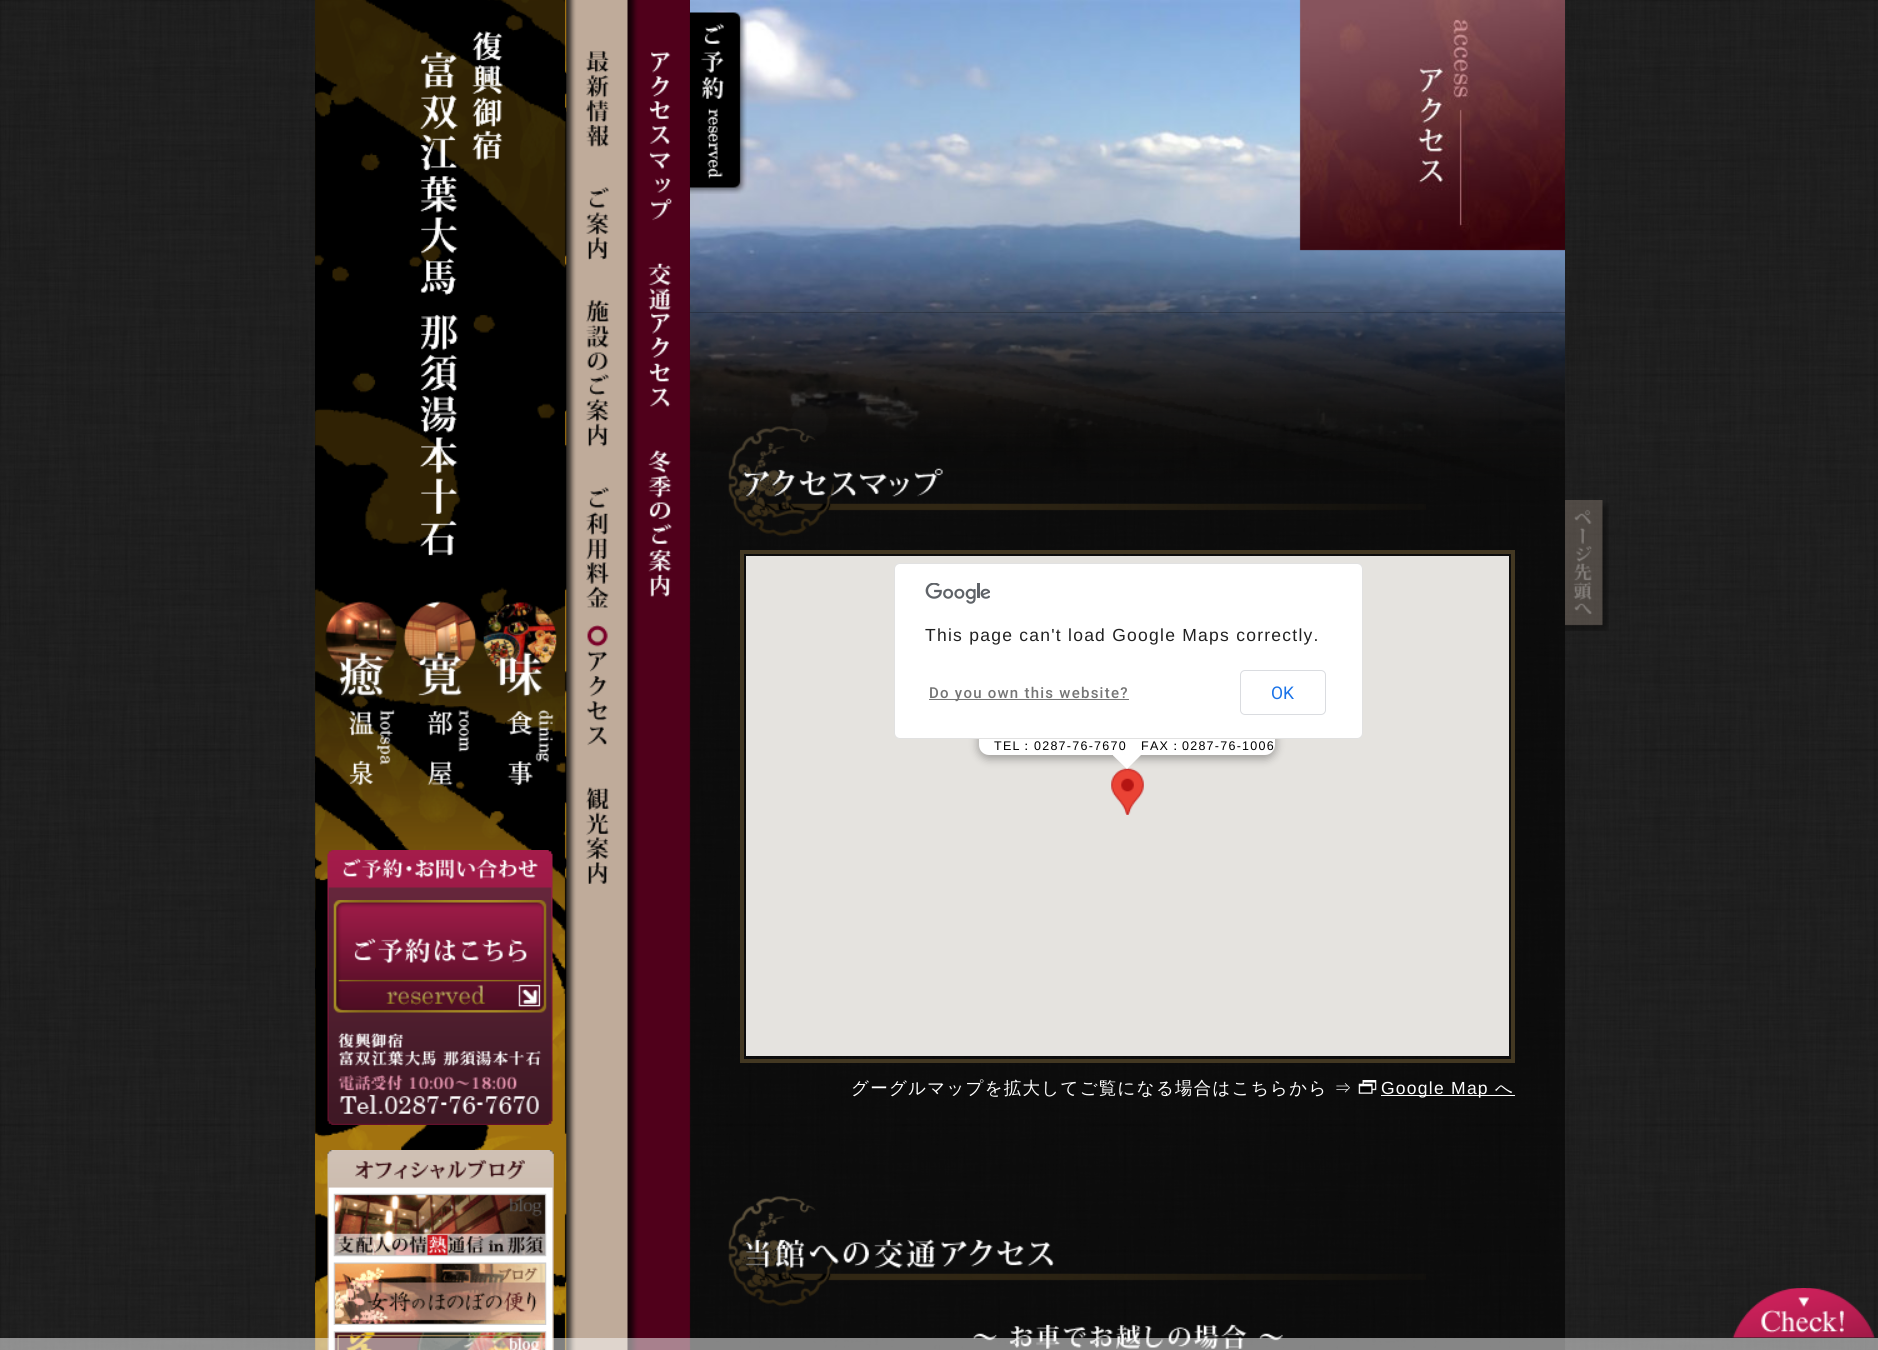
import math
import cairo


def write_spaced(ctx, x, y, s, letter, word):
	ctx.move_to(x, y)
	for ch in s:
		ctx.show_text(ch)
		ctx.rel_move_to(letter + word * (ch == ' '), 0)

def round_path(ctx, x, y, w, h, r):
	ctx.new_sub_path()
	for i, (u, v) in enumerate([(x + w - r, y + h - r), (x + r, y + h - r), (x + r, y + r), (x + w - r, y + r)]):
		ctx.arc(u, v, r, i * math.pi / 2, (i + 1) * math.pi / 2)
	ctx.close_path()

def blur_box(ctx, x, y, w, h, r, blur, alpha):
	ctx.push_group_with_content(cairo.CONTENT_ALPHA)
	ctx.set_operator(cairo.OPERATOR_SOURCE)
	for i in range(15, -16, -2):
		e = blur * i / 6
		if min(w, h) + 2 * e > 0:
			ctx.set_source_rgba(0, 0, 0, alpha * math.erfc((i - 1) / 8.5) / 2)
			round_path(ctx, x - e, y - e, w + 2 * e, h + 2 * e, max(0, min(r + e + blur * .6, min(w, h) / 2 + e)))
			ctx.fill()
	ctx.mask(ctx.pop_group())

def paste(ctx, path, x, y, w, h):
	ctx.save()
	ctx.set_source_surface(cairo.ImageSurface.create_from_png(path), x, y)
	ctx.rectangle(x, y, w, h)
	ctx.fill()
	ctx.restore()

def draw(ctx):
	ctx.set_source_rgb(1, 1, 1)
	ctx.paint()
	paste(ctx, 'media/1.png', 0, 0, 1878, 1350)
	paste(ctx, 'media/2.png', 566, 0, 999, 1350)
	paste(ctx, 'media/3.png', 315, 0, 252, 1350)
	paste(ctx, 'media/4.png', 315, 0, 250, 982)
	paste(ctx, 'media/5.png', 420, 31, 83, 525)
	paste(ctx, 'media/6.png', 325, 601, 72, 185)
	paste(ctx, 'media/7.png', 403, 601, 74, 185)
	paste(ctx, 'media/8.png', 483, 602, 74, 184)
	paste(ctx, 'media/9.png', 327, 850, 226, 275)
	paste(ctx, 'media/10.png', 333, 900, 214, 113)
	paste(ctx, 'media/11.png', 327, 1150, 227, 200)
	paste(ctx, 'media/12.png', 333, 1193, 214, 64)
	paste(ctx, 'media/13.png', 333, 1262, 214, 63)
	paste(ctx, 'media/14.png', 333, 1331, 214, 19)
	paste(ctx, 'media/15.png', 586, 50, 23, 97)
	paste(ctx, 'media/16.png', 586, 187, 23, 73)
	paste(ctx, 'media/17.png', 586, 299, 23, 148)
	paste(ctx, 'media/18.png', 586, 487, 23, 121)
	paste(ctx, 'media/19.png', 587, 651, 21, 95)
	paste(ctx, 'media/20.png', 587, 625, 21, 22)
	paste(ctx, 'media/21.png', 586, 787, 23, 97)
	paste(ctx, 'media/22.png', 649, 52, 23, 169)
	paste(ctx, 'media/23.png', 648, 262, 24, 145)
	paste(ctx, 'media/24.png', 648, 450, 24, 147)
	paste(ctx, 'media/25.png', 1565, 500, 44, 131)
	paste(ctx, 'media/26.png', 690, 0, 875, 313)
	paste(ctx, 'media/27.png', 690, 12, 57, 182)
	paste(ctx, 'media/29.png', 728, 426, 698, 111)
	paste(ctx, 'media/28.png', 690, 312, 875, 169)
	paste(ctx, 'media/30.png', 743, 468, 200, 30)
	ctx.rectangle(742, 552, 771, 509)
	ctx.set_source_rgb(0.263, 0.22, 0.133)
	ctx.set_line_width(4)
	ctx.stroke()
	ctx.set_source_rgb(0.898, 0.89, 0.875)
	ctx.rectangle(746, 556, 763, 500)
	ctx.fill()
	paste(ctx, 'media/32.png', 1111, 768, 33, 47)
	ctx.set_source_rgb(0, 0, 0)
	blur_box(ctx, 978, 633, 298, 126, 11, 4.5, 0.3)
	ctx.set_source_rgb(1, 1, 1)
	round_path(ctx, 979, 631, 296, 124, 10)
	ctx.fill()
	round_path(ctx, 894, 563, 469, 176, 6)
	ctx.fill()
	round_path(ctx, 894.5, 563.5, 468, 175, 5.5)
	ctx.set_source_rgba(0, 0, 0, 0.12)
	ctx.set_line_width(1)
	ctx.stroke()
	paste(ctx, 'media/31.png', 925, 583, 65, 21)
	ctx.select_font_face('Liberation Sans')
	ctx.set_font_size(17.5)
	ctx.set_source_rgb(0.129, 0.129, 0.129)
	write_spaced(ctx, 925, 641, 'This page can\'t load Google Maps correctly.', 1.25, 0)
	ctx.set_source_rgb(0.459, 0.459, 0.459)
	ctx.rectangle(929, 699, 200, 1)
	ctx.fill()
	ctx.select_font_face('Roboto Medium')
	ctx.set_font_size(15)
	write_spaced(ctx, 929, 698, 'Do you own this website?', 1.25, 0)
	round_path(ctx, 1240.5, 670.5, 85, 44, 4.5)
	ctx.set_source_rgb(0.855, 0.863, 0.878)
	ctx.stroke()
	ctx.select_font_face('Roboto')
	ctx.set_font_size(17.5)
	ctx.set_source_rgb(0.102, 0.451, 0.91)
	ctx.move_to(1271, 699)
	ctx.show_text('OK')
	ctx.select_font_face('Liberation Sans')
	ctx.set_font_size(12.5)
	ctx.set_source_rgb(0, 0, 0)
	write_spaced(ctx, 994, 750, 'TEL', 1.25, 0)
	ctx.select_font_face('WenQuanYi Zen Hei Medium')
	write_spaced(ctx, 1020, 750, '：', 1.25, 0)
	ctx.select_font_face('Liberation Sans')
	write_spaced(ctx, 1034, 750, '0287-76-7670', 1.25, 0)
	write_spaced(ctx, 1141, 750, 'FAX', 1.25, 0)
	ctx.select_font_face('WenQuanYi Zen Hei Medium')
	write_spaced(ctx, 1169, 750, '：', 1.25, 0)
	ctx.select_font_face('Liberation Sans')
	write_spaced(ctx, 1182, 750, '0287-76-1006', 1.25, 0)
	ctx.set_source_rgb(1, 1, 1)
	ctx.new_path()
	ctx.move_to(1113, 754)
	ctx.line_to(1113, 755.5)
	ctx.line_to(1127, 769)
	ctx.line_to(1142, 754)
	ctx.close_path()
	ctx.fill()
	ctx.select_font_face('WenQuanYi Zen Hei Medium')
	ctx.set_font_size(17.5)
	write_spaced(ctx, 851, 1094, 'グーグルマップを拡大してご覧になる場合はこちらから ⇒', 1.25, 0)
	paste(ctx, 'media/33.png', 1358, 1080, 19, 14)
	ctx.rectangle(1381, 1095, 134, 1)
	ctx.fill()
	ctx.select_font_face('Liberation Sans')
	write_spaced(ctx, 1381, 1094, 'Google Map', 1.25, 0)
	ctx.select_font_face('WenQuanYi Zen Hei Medium')
	write_spaced(ctx, 1495, 1094, 'へ', 1.25, 0)
	paste(ctx, 'media/34.png', 728, 1196, 698, 111)
	paste(ctx, 'media/35.png', 745, 1238, 309, 31)
	paste(ctx, 'media/36.png', 972, 1323, 311, 26)
	paste(ctx, 'media/37.png', 1732, 1288, 143, 50)
	ctx.set_source_rgba(1, 1, 1, 0.5)
	ctx.rectangle(0, 1338, 1878, 12)
	ctx.fill()


surface = cairo.ImageSurface(cairo.FORMAT_RGB24, 1878, 1350)
ctx = cairo.Context(surface)
options = cairo.FontOptions()
options.set_hint_metrics(cairo.HINT_METRICS_OFF)
options.set_hint_style(cairo.HINT_STYLE_NONE)
ctx.set_font_options(options)
ctx.set_miter_limit(4)
draw(ctx)
surface.write_to_png('image.png')
